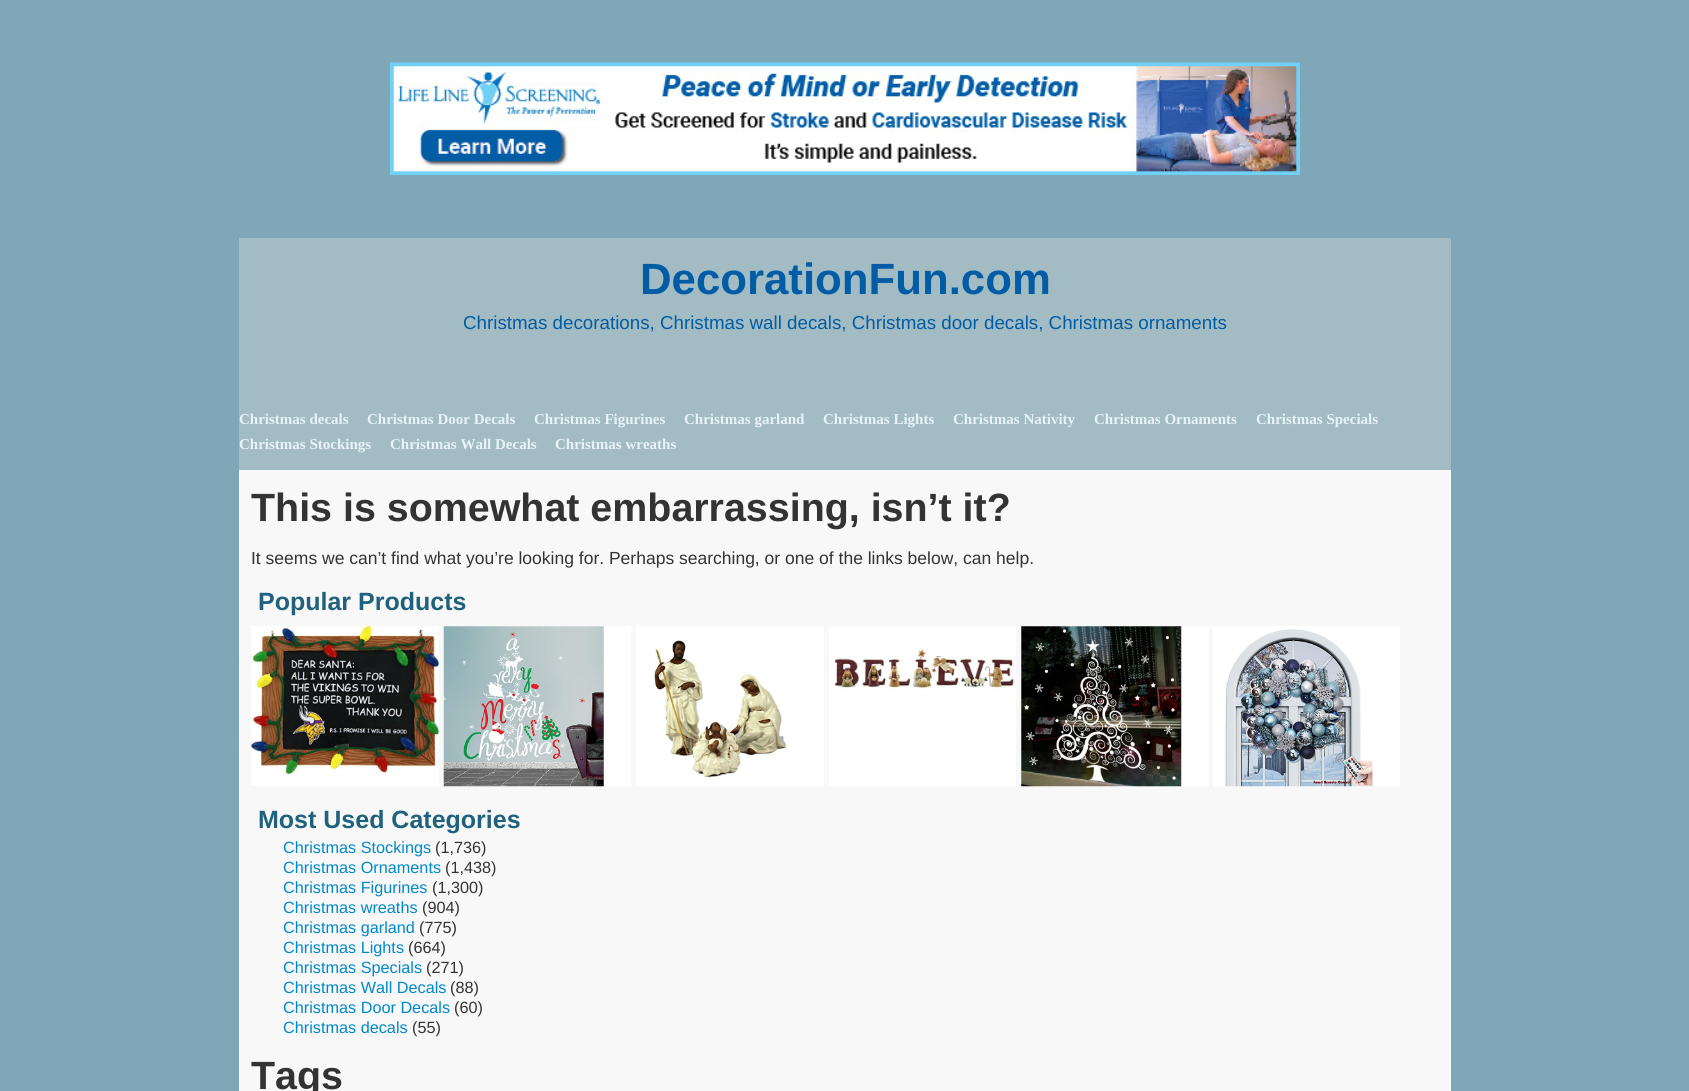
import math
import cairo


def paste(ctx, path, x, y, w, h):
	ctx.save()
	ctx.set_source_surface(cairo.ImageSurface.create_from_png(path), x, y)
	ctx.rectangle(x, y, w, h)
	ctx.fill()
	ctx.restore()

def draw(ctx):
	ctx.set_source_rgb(0.498, 0.655, 0.722)
	ctx.paint()
	paste(ctx, 'media/1.png', 390, 62, 910, 113)
	ctx.set_source_rgb(0.639, 0.733, 0.761)
	ctx.rectangle(239, 238, 1212, 232)
	ctx.fill()
	ctx.select_font_face('Liberation Sans', cairo.FONT_SLANT_NORMAL, cairo.FONT_WEIGHT_BOLD)
	ctx.set_font_size(43.75)
	ctx.set_source_rgb(0, 0.365, 0.647)
	ctx.move_to(640, 294)
	ctx.show_text('DecorationFun.com')
	ctx.select_font_face('Liberation Sans')
	ctx.set_font_size(18.75)
	ctx.move_to(463, 329)
	ctx.show_text('Christmas decorations, Christmas wall decals, Christmas door decals, Christmas ornaments')
	ctx.select_font_face('Liberation Serif', cairo.FONT_SLANT_NORMAL, cairo.FONT_WEIGHT_BOLD)
	ctx.set_font_size(15)
	ctx.set_source_rgb(0.91, 0.953, 0.973)
	for x, y, s in [
		(239, 424, 'Christmas decals'),
		(367, 424, 'Christmas Door Decals'),
		(534, 424, 'Christmas Figurines'),
		(684, 424, 'Christmas garland'),
		(823, 424, 'Christmas Lights'),
		(953, 424, 'Christmas Nativity'),
		(1094, 424, 'Christmas Ornaments'),
		(1256, 424, 'Christmas Specials'),
		(239, 449, 'Christmas Stockings'),
		(390, 449, 'Christmas Wall Decals'),
		(555, 449, 'Christmas wreaths'),
	]:
		ctx.move_to(x, y)
		ctx.show_text(s)
	ctx.set_source_rgb(0.969, 0.969, 0.969)
	ctx.rectangle(239, 470, 1212, 621)
	ctx.fill()
	ctx.select_font_face('Liberation Sans', cairo.FONT_SLANT_NORMAL, cairo.FONT_WEIGHT_BOLD)
	ctx.set_font_size(39.4)
	ctx.set_source_rgb(0.2, 0.2, 0.2)
	ctx.move_to(251, 521)
	ctx.show_text('This is somewhat embarrassing, isn’t it?')
	ctx.select_font_face('Liberation Sans')
	ctx.set_font_size(17.5)
	ctx.move_to(251, 564)
	ctx.show_text('It seems we can’t find what you’re looking for. Perhaps searching, or one of the links below, can help.')
	ctx.select_font_face('Liberation Sans', cairo.FONT_SLANT_NORMAL, cairo.FONT_WEIGHT_BOLD)
	ctx.set_font_size(25)
	ctx.set_source_rgb(0.125, 0.384, 0.494)
	ctx.move_to(258, 610)
	ctx.show_text('Popular Products')
	ctx.set_source_rgb(1, 1, 1)
	ctx.rectangle(251, 626, 188, 160)
	ctx.fill()
	paste(ctx, 'media/2.png', 251, 626, 188, 148)
	ctx.rectangle(444, 626, 187, 160)
	ctx.fill()
	paste(ctx, 'media/3.png', 443, 626, 161, 161)
	ctx.rectangle(636, 626, 188, 160)
	ctx.fill()
	paste(ctx, 'media/4.png', 653, 640, 134, 139)
	ctx.rectangle(829, 626, 187, 160)
	ctx.fill()
	paste(ctx, 'media/5.png', 834, 647, 181, 45)
	ctx.rectangle(1021, 626, 188, 160)
	ctx.fill()
	paste(ctx, 'media/6.png', 1021, 626, 161, 161)
	ctx.rectangle(1213, 626, 187, 160)
	ctx.fill()
	paste(ctx, 'media/7.png', 1212, 627, 161, 160)
	ctx.set_source_rgb(0.125, 0.384, 0.494)
	ctx.move_to(258, 828)
	ctx.show_text('Most Used Categories')
	ctx.select_font_face('Liberation Sans')
	ctx.set_font_size(16.25)
	ctx.set_source_rgb(0, 0.533, 0.8)
	ctx.move_to(283, 853)
	ctx.show_text('Christmas Stockings')
	ctx.set_source_rgb(0.2, 0.2, 0.2)
	ctx.move_to(435, 853)
	ctx.show_text('(1,736)')
	ctx.set_source_rgb(0, 0.533, 0.8)
	ctx.move_to(283, 873)
	ctx.show_text('Christmas Ornaments')
	ctx.set_source_rgb(0.2, 0.2, 0.2)
	ctx.move_to(445, 873)
	ctx.show_text('(1,438)')
	ctx.set_source_rgb(0, 0.533, 0.8)
	ctx.move_to(283, 893)
	ctx.show_text('Christmas Figurines')
	ctx.set_source_rgb(0.2, 0.2, 0.2)
	ctx.move_to(432, 893)
	ctx.show_text('(1,300)')
	ctx.set_source_rgb(0, 0.533, 0.8)
	ctx.move_to(283, 913)
	ctx.show_text('Christmas wreaths')
	ctx.set_source_rgb(0.2, 0.2, 0.2)
	ctx.move_to(422, 913)
	ctx.show_text('(904)')
	ctx.set_source_rgb(0, 0.533, 0.8)
	ctx.move_to(283, 933)
	ctx.show_text('Christmas garland')
	ctx.set_source_rgb(0.2, 0.2, 0.2)
	ctx.move_to(419, 933)
	ctx.show_text('(775)')
	ctx.set_source_rgb(0, 0.533, 0.8)
	ctx.move_to(283, 953)
	ctx.show_text('Christmas Lights')
	ctx.set_source_rgb(0.2, 0.2, 0.2)
	ctx.move_to(408, 953)
	ctx.show_text('(664)')
	ctx.set_source_rgb(0, 0.533, 0.8)
	ctx.move_to(283, 973)
	ctx.show_text('Christmas Specials')
	ctx.set_source_rgb(0.2, 0.2, 0.2)
	ctx.move_to(426, 973)
	ctx.show_text('(271)')
	ctx.set_source_rgb(0, 0.533, 0.8)
	ctx.move_to(283, 993)
	ctx.show_text('Christmas Wall Decals')
	ctx.set_source_rgb(0.2, 0.2, 0.2)
	ctx.move_to(450, 993)
	ctx.show_text('(88)')
	ctx.set_source_rgb(0, 0.533, 0.8)
	ctx.move_to(283, 1013)
	ctx.show_text('Christmas Door Decals')
	ctx.set_source_rgb(0.2, 0.2, 0.2)
	ctx.move_to(454, 1013)
	ctx.show_text('(60)')
	ctx.set_source_rgb(0, 0.533, 0.8)
	ctx.move_to(283, 1033)
	ctx.show_text('Christmas decals')
	ctx.set_source_rgb(0.2, 0.2, 0.2)
	ctx.move_to(412, 1033)
	ctx.show_text('(55)')
	ctx.select_font_face('Liberation Sans', cairo.FONT_SLANT_NORMAL, cairo.FONT_WEIGHT_BOLD)
	ctx.set_font_size(39.4)
	ctx.move_to(251, 1089)
	ctx.show_text('Tags')


surface = cairo.ImageSurface(cairo.FORMAT_RGB24, 1689, 1091)
ctx = cairo.Context(surface)
options = cairo.FontOptions()
options.set_hint_metrics(cairo.HINT_METRICS_OFF)
options.set_hint_style(cairo.HINT_STYLE_NONE)
ctx.set_font_options(options)
ctx.set_miter_limit(4)
draw(ctx)
surface.write_to_png('image.png')
